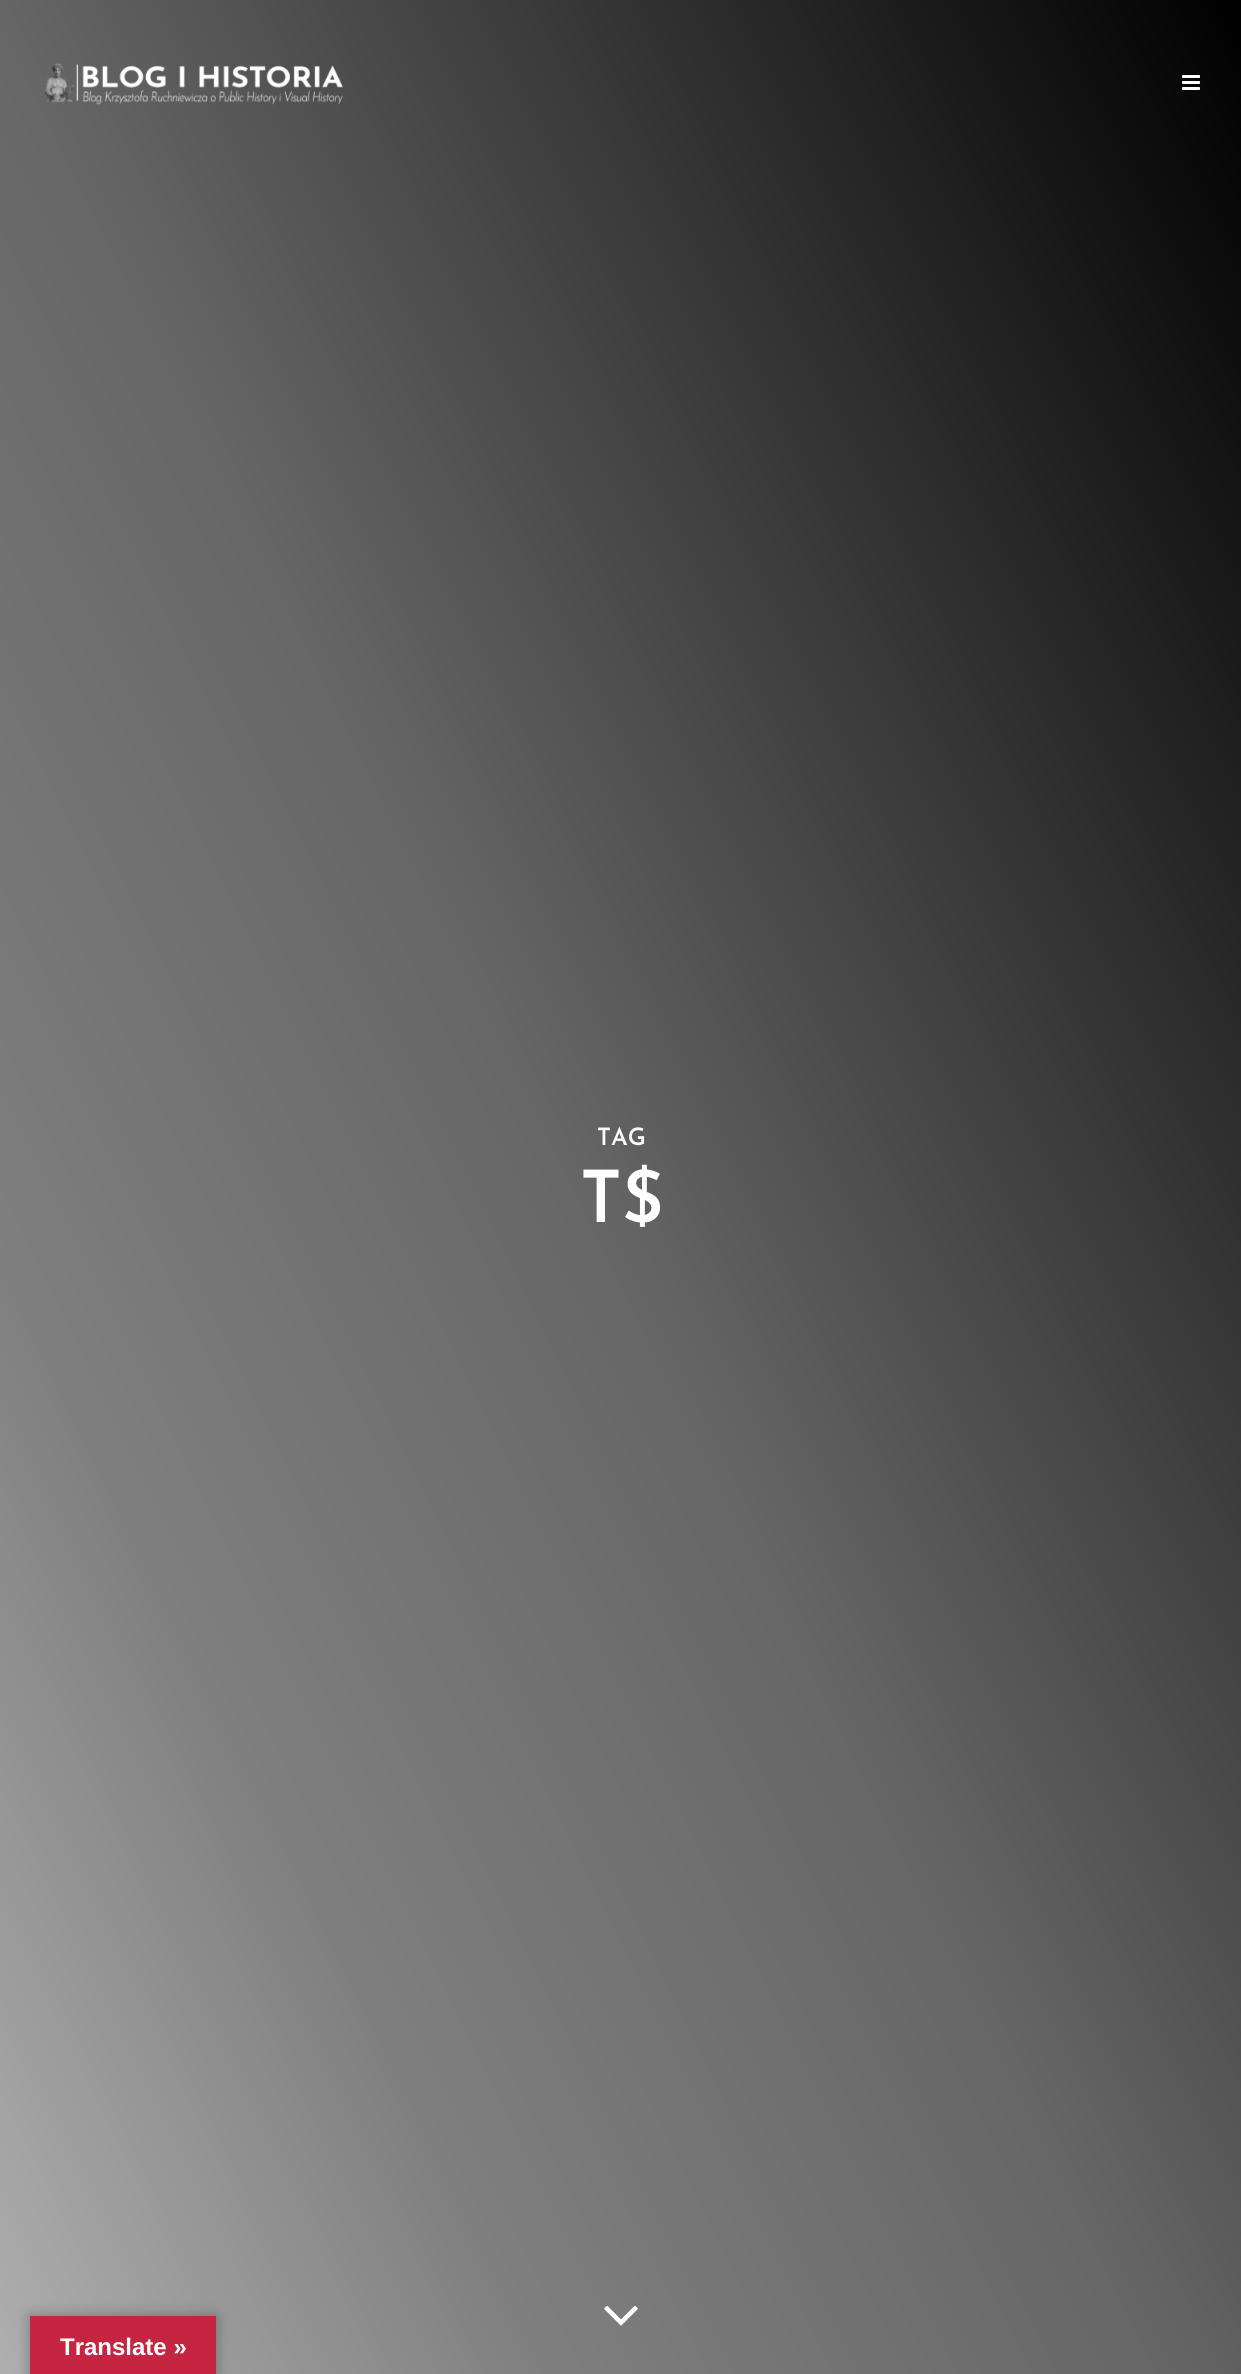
import math
import cairo


def round_path(ctx, x, y, w, h, r):
	ctx.new_sub_path()
	for i, (u, v) in enumerate([(x + w - r, y + h - r), (x + r, y + h - r), (x + r, y + r), (x + w - r, y + r)]):
		ctx.arc(u, v, r, i * math.pi / 2, (i + 1) * math.pi / 2)
	ctx.close_path()

def blur_box(ctx, x, y, w, h, r, blur, alpha):
	ctx.push_group_with_content(cairo.CONTENT_ALPHA)
	ctx.set_operator(cairo.OPERATOR_SOURCE)
	for i in range(15, -16, -2):
		e = blur * i / 6
		if min(w, h) + 2 * e > 0:
			ctx.set_source_rgba(0, 0, 0, alpha * math.erfc((i - 1) / 8.5) / 2)
			round_path(ctx, x - e, y - e, w + 2 * e, h + 2 * e, max(0, min(r + e + blur * .6, min(w, h) / 2 + e)))
			ctx.fill()
	ctx.mask(ctx.pop_group())

def paste(ctx, path, x, y, w, h):
	ctx.save()
	ctx.set_source_surface(cairo.ImageSurface.create_from_png(path), x, y)
	ctx.rectangle(x, y, w, h)
	ctx.fill()
	ctx.restore()

def draw(ctx):
	ctx.set_source_rgb(1, 1, 1)
	ctx.paint()
	gradient = cairo.LinearGradient(-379, 1754, 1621, 769)
	gradient.add_color_stop_rgba(0, 0.71, 0.71, 0.71, 1)
	gradient.add_color_stop_rgba(0.25, 0.498, 0.498, 0.498, 1)
	gradient.add_color_stop_rgba(0.5, 0.4, 0.4, 0.4, 1)
	gradient.add_color_stop_rgba(0.75, 0.2, 0.2, 0.2, 1)
	gradient.add_color_stop_rgba(1, 0, 0, 0, 1)
	ctx.set_source(gradient)
	ctx.rectangle(0, 0, 1241, 2374)
	ctx.fill()
	paste(ctx, 'media/1.png', 44, 63, 299, 42)
	paste(ctx, 'media/2.png', 1182, 75, 18, 15)
	ctx.select_font_face('Josefin Sans SemiBold')
	ctx.set_font_size(24)
	ctx.set_source_rgb(1, 1, 1)
	ctx.move_to(597, 1145)
	ctx.show_text('TAG')
	ctx.set_font_size(72)
	ctx.move_to(580, 1222)
	ctx.show_text('T$')
	paste(ctx, 'media/3.png', 604, 2306, 34, 20)
	ctx.set_source_rgb(0, 0, 0)
	blur_box(ctx, 30, 2316, 186, 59, 0, 7, 0.3)
	ctx.set_source_rgb(0.776, 0.145, 0.255)
	ctx.rectangle(30, 2316, 186, 58)
	ctx.fill()
	ctx.select_font_face('Liberation Sans', cairo.FONT_SLANT_NORMAL, cairo.FONT_WEIGHT_BOLD)
	ctx.set_font_size(24)
	ctx.set_source_rgb(1, 1, 1)
	ctx.move_to(60, 2355)
	ctx.show_text('Translate »')


surface = cairo.ImageSurface(cairo.FORMAT_RGB24, 1241, 2374)
ctx = cairo.Context(surface)
options = cairo.FontOptions()
options.set_hint_metrics(cairo.HINT_METRICS_OFF)
options.set_hint_style(cairo.HINT_STYLE_NONE)
ctx.set_font_options(options)
ctx.set_miter_limit(4)
draw(ctx)
surface.write_to_png('image.png')
